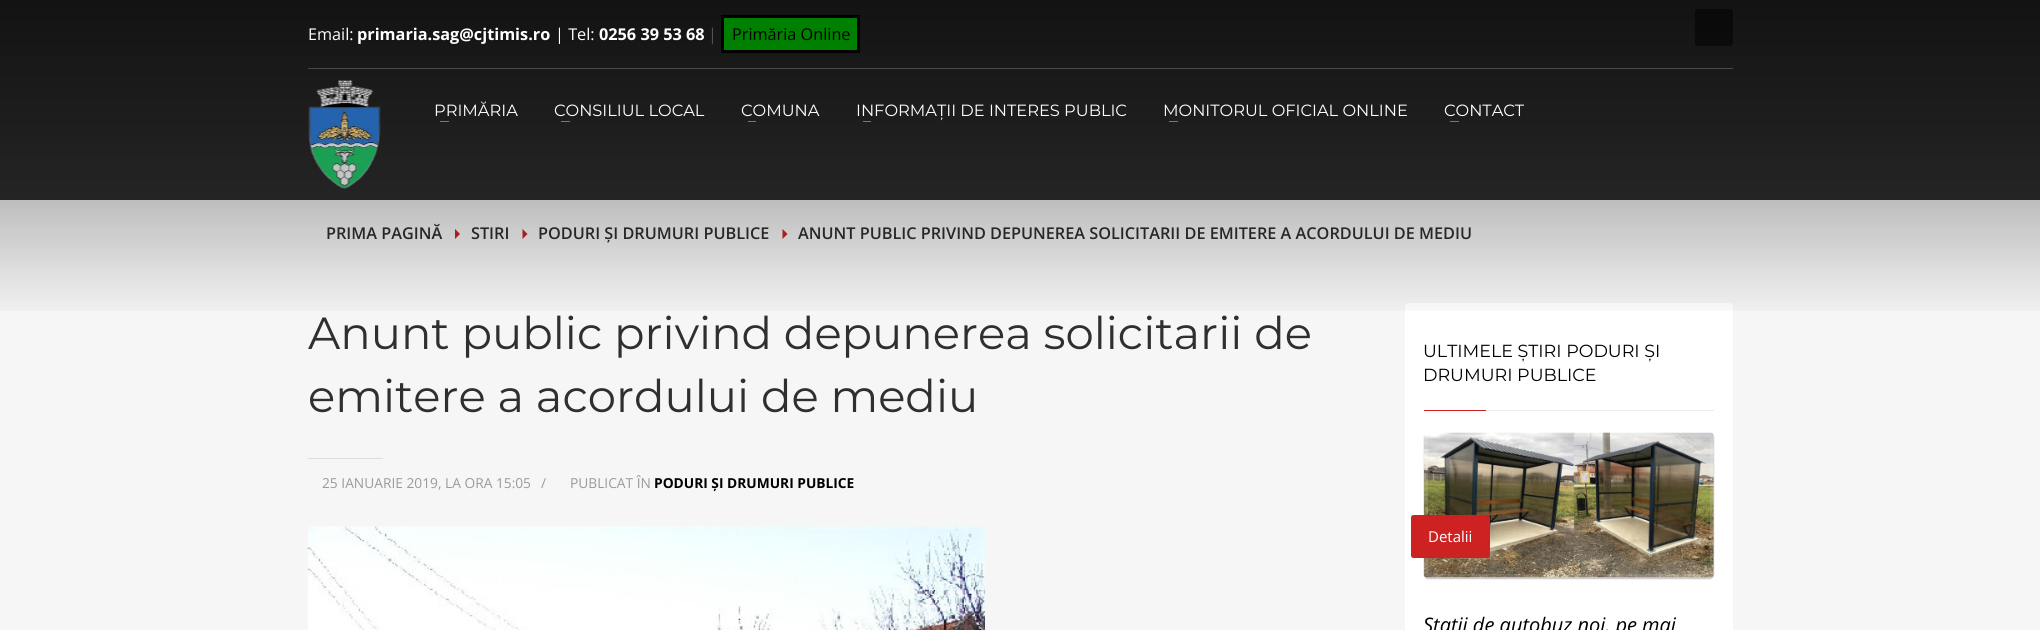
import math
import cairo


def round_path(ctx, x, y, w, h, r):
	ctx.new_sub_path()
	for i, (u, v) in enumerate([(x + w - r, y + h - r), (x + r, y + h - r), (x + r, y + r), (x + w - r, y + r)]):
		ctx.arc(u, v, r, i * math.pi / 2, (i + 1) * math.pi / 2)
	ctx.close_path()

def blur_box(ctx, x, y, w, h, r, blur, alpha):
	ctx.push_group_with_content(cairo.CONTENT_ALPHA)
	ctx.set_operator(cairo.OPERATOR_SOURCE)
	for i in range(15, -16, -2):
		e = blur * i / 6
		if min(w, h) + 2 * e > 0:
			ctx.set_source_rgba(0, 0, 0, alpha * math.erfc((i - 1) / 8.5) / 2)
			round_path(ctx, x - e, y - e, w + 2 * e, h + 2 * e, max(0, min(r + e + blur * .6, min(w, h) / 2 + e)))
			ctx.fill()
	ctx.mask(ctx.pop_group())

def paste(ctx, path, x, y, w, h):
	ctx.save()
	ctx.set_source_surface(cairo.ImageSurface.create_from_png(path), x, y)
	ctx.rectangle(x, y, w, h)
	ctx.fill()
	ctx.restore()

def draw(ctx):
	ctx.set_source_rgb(0.961, 0.961, 0.961)
	ctx.paint()
	ctx.set_source_rgb(0.184, 0.184, 0.184)
	ctx.rectangle(0, 0, 2040, 200)
	ctx.fill()
	ctx.select_font_face('Open Sans SemiBold')
	ctx.set_font_size(16.25)
	ctx.move_to(326, 239)
	ctx.show_text('PRIMA PAGINĂ')
	ctx.set_source_rgb(0.804, 0.129, 0.133)
	ctx.new_path()
	ctx.move_to(455, 239)
	ctx.line_to(455, 229)
	ctx.line_to(460, 234)
	ctx.close_path()
	ctx.fill()
	ctx.set_source_rgb(0.184, 0.184, 0.184)
	ctx.move_to(471, 239)
	ctx.show_text('STIRI')
	ctx.set_source_rgb(0.804, 0.129, 0.133)
	ctx.new_path()
	ctx.move_to(522.5, 239)
	ctx.line_to(522.5, 229)
	ctx.line_to(527.5, 234)
	ctx.close_path()
	ctx.fill()
	ctx.set_source_rgb(0.184, 0.184, 0.184)
	ctx.move_to(538, 239)
	ctx.show_text('PODURI ȘI DRUMURI PUBLICE')
	ctx.set_source_rgb(0.804, 0.129, 0.133)
	ctx.new_path()
	ctx.move_to(782.5, 239)
	ctx.line_to(782.5, 229)
	ctx.line_to(787.5, 234)
	ctx.close_path()
	ctx.fill()
	ctx.set_source_rgb(0.184, 0.184, 0.184)
	ctx.move_to(798, 239)
	ctx.show_text('ANUNT PUBLIC PRIVIND DEPUNEREA SOLICITARII DE EMITERE A ACORDULUI DE MEDIU')
	ctx.set_source_rgb(1, 1, 1)
	round_path(ctx, 1405, 303, 328, 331, 4)
	ctx.fill()
	gradient = cairo.LinearGradient(1020, 0, 1020, 323)
	gradient.add_color_stop_rgba(0, 0, 0, 0, 0.6)
	gradient.add_color_stop_rgba(1, 0, 0, 0, 0)
	ctx.set_source(gradient)
	ctx.rectangle(0, 0, 2040, 311)
	ctx.fill()
	ctx.select_font_face('Open Sans')
	ctx.set_source_rgb(1, 1, 1)
	ctx.move_to(308, 40)
	ctx.show_text('Email:')
	ctx.select_font_face('Open Sans', cairo.FONT_SLANT_NORMAL, cairo.FONT_WEIGHT_BOLD)
	ctx.move_to(357, 40)
	ctx.show_text('primaria.sag@cjtimis.ro')
	ctx.select_font_face('Open Sans')
	ctx.move_to(555, 40)
	ctx.show_text('| Tel:')
	ctx.select_font_face('Open Sans', cairo.FONT_SLANT_NORMAL, cairo.FONT_WEIGHT_BOLD)
	ctx.move_to(599, 40)
	ctx.show_text('0256 39 53 68')
	ctx.select_font_face('Open Sans')
	ctx.set_source_rgb(0.325, 0.325, 0.325)
	ctx.move_to(708, 40)
	ctx.show_text('|')
	ctx.set_source_rgb(0, 0.502, 0)
	ctx.rectangle(722.5, 16.5, 136, 35)
	ctx.fill_preserve()
	ctx.set_source_rgb(0, 0, 0)
	ctx.set_line_width(3)
	ctx.stroke()
	ctx.move_to(732, 40)
	ctx.show_text('Primăria Online')
	ctx.set_source_rgba(0, 0, 0, 0.5)
	round_path(ctx, 1695, 9, 38, 37, 2.5)
	ctx.fill()
	ctx.set_source_rgb(0.278, 0.278, 0.278)
	ctx.rectangle(308, 68, 1425, 1)
	ctx.fill()
	paste(ctx, 'media/1.png', 308, 80, 73, 109)
	ctx.select_font_face('Montserrat')
	ctx.set_source_rgb(1, 1, 1)
	ctx.move_to(434, 116)
	ctx.show_text('PRIMĂRIA')
	ctx.set_source_rgb(0.471, 0.471, 0.471)
	ctx.rectangle(440, 121, 9, 1)
	ctx.fill()
	ctx.set_source_rgb(1, 1, 1)
	ctx.move_to(554, 116)
	ctx.show_text('CONSILIUL LOCAL')
	ctx.set_source_rgb(0.471, 0.471, 0.471)
	ctx.rectangle(561, 121, 9, 1)
	ctx.fill()
	ctx.set_source_rgb(1, 1, 1)
	ctx.move_to(741, 116)
	ctx.show_text('COMUNA')
	ctx.set_source_rgb(0.471, 0.471, 0.471)
	ctx.rectangle(748, 121, 8, 1)
	ctx.fill()
	ctx.set_source_rgb(1, 1, 1)
	ctx.move_to(856, 116)
	ctx.show_text('INFORMAȚII DE INTERES PUBLIC')
	ctx.set_source_rgb(0.471, 0.471, 0.471)
	ctx.rectangle(863, 121, 8, 1)
	ctx.fill()
	ctx.set_source_rgb(1, 1, 1)
	ctx.move_to(1163, 116)
	ctx.show_text('MONITORUL OFICIAL ONLINE')
	ctx.set_source_rgb(0.471, 0.471, 0.471)
	ctx.rectangle(1169, 121, 9, 1)
	ctx.fill()
	ctx.set_source_rgb(1, 1, 1)
	ctx.move_to(1444, 116)
	ctx.show_text('CONTACT')
	ctx.set_source_rgb(0.471, 0.471, 0.471)
	ctx.rectangle(1450, 121, 9, 1)
	ctx.fill()
	ctx.set_font_size(45)
	ctx.set_source_rgb(0.184, 0.184, 0.184)
	ctx.move_to(308, 349)
	ctx.show_text('Anunt public privind depunerea solicitarii de')
	ctx.move_to(308, 412)
	ctx.show_text('emitere a acordului de mediu')
	ctx.set_source_rgb(0.867, 0.867, 0.867)
	ctx.rectangle(308, 458, 75, 1)
	ctx.fill()
	ctx.select_font_face('Open Sans')
	ctx.set_font_size(13.75)
	ctx.set_source_rgb(0.604, 0.604, 0.604)
	for x, y, s in [
		(322, 488, '25 IANUARIE 2019, LA ORA 15:05'),
		(541, 488, '/'),
		(570, 488, 'PUBLICAT ÎN'),
	]:
		ctx.move_to(x, y)
		ctx.show_text(s)
	ctx.select_font_face('Open Sans', cairo.FONT_SLANT_NORMAL, cairo.FONT_WEIGHT_BOLD)
	ctx.set_source_rgb(0, 0, 0)
	ctx.move_to(654, 488)
	ctx.show_text('PODURI ȘI DRUMURI PUBLICE')
	paste(ctx, 'media/2.png', 307, 526, 678, 104)
	round_path(ctx, 310, 528, 673, 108, 2)
	ctx.set_source_rgba(1, 1, 1, 0.15)
	ctx.set_line_width(4)
	ctx.stroke()
	ctx.select_font_face('Montserrat')
	ctx.set_font_size(17.5)
	ctx.set_source_rgb(0, 0, 0)
	ctx.move_to(1423, 357)
	ctx.show_text('ULTIMELE ȘTIRI PODURI ȘI')
	ctx.move_to(1423, 381)
	ctx.show_text('DRUMURI PUBLICE')
	ctx.set_source_rgb(0.804, 0.129, 0.133)
	ctx.rectangle(1424, 410, 62, 1)
	ctx.fill()
	ctx.set_source_rgb(0.925, 0.925, 0.925)
	ctx.rectangle(1486, 410, 228, 1)
	ctx.fill()
	ctx.set_source_rgb(0, 0, 0)
	blur_box(ctx, 1424, 434, 290, 145, 4, 0.5, 0.22)
	paste(ctx, 'media/3.png', 1423, 432, 291, 146)
	round_path(ctx, 1426, 435, 286, 141, 2)
	ctx.set_source_rgba(1, 1, 1, 0.15)
	ctx.stroke()
	ctx.set_source_rgb(0.804, 0.129, 0.133)
	round_path(ctx, 1411, 515, 79, 43, 2.5)
	ctx.fill()
	ctx.select_font_face('Open Sans')
	ctx.set_font_size(15)
	ctx.set_source_rgb(1, 1, 1)
	ctx.move_to(1428, 542)
	ctx.show_text('Detalii')
	ctx.select_font_face('Open Sans', cairo.FONT_SLANT_ITALIC)
	ctx.set_font_size(20)
	ctx.set_source_rgb(0, 0, 0)
	ctx.move_to(1423, 632)
	ctx.show_text('Stații de autobuz noi, pe mai')


surface = cairo.ImageSurface(cairo.FORMAT_RGB24, 2040, 630)
ctx = cairo.Context(surface)
options = cairo.FontOptions()
options.set_hint_metrics(cairo.HINT_METRICS_OFF)
options.set_hint_style(cairo.HINT_STYLE_NONE)
ctx.set_font_options(options)
ctx.set_miter_limit(4)
draw(ctx)
surface.write_to_png('image.png')
